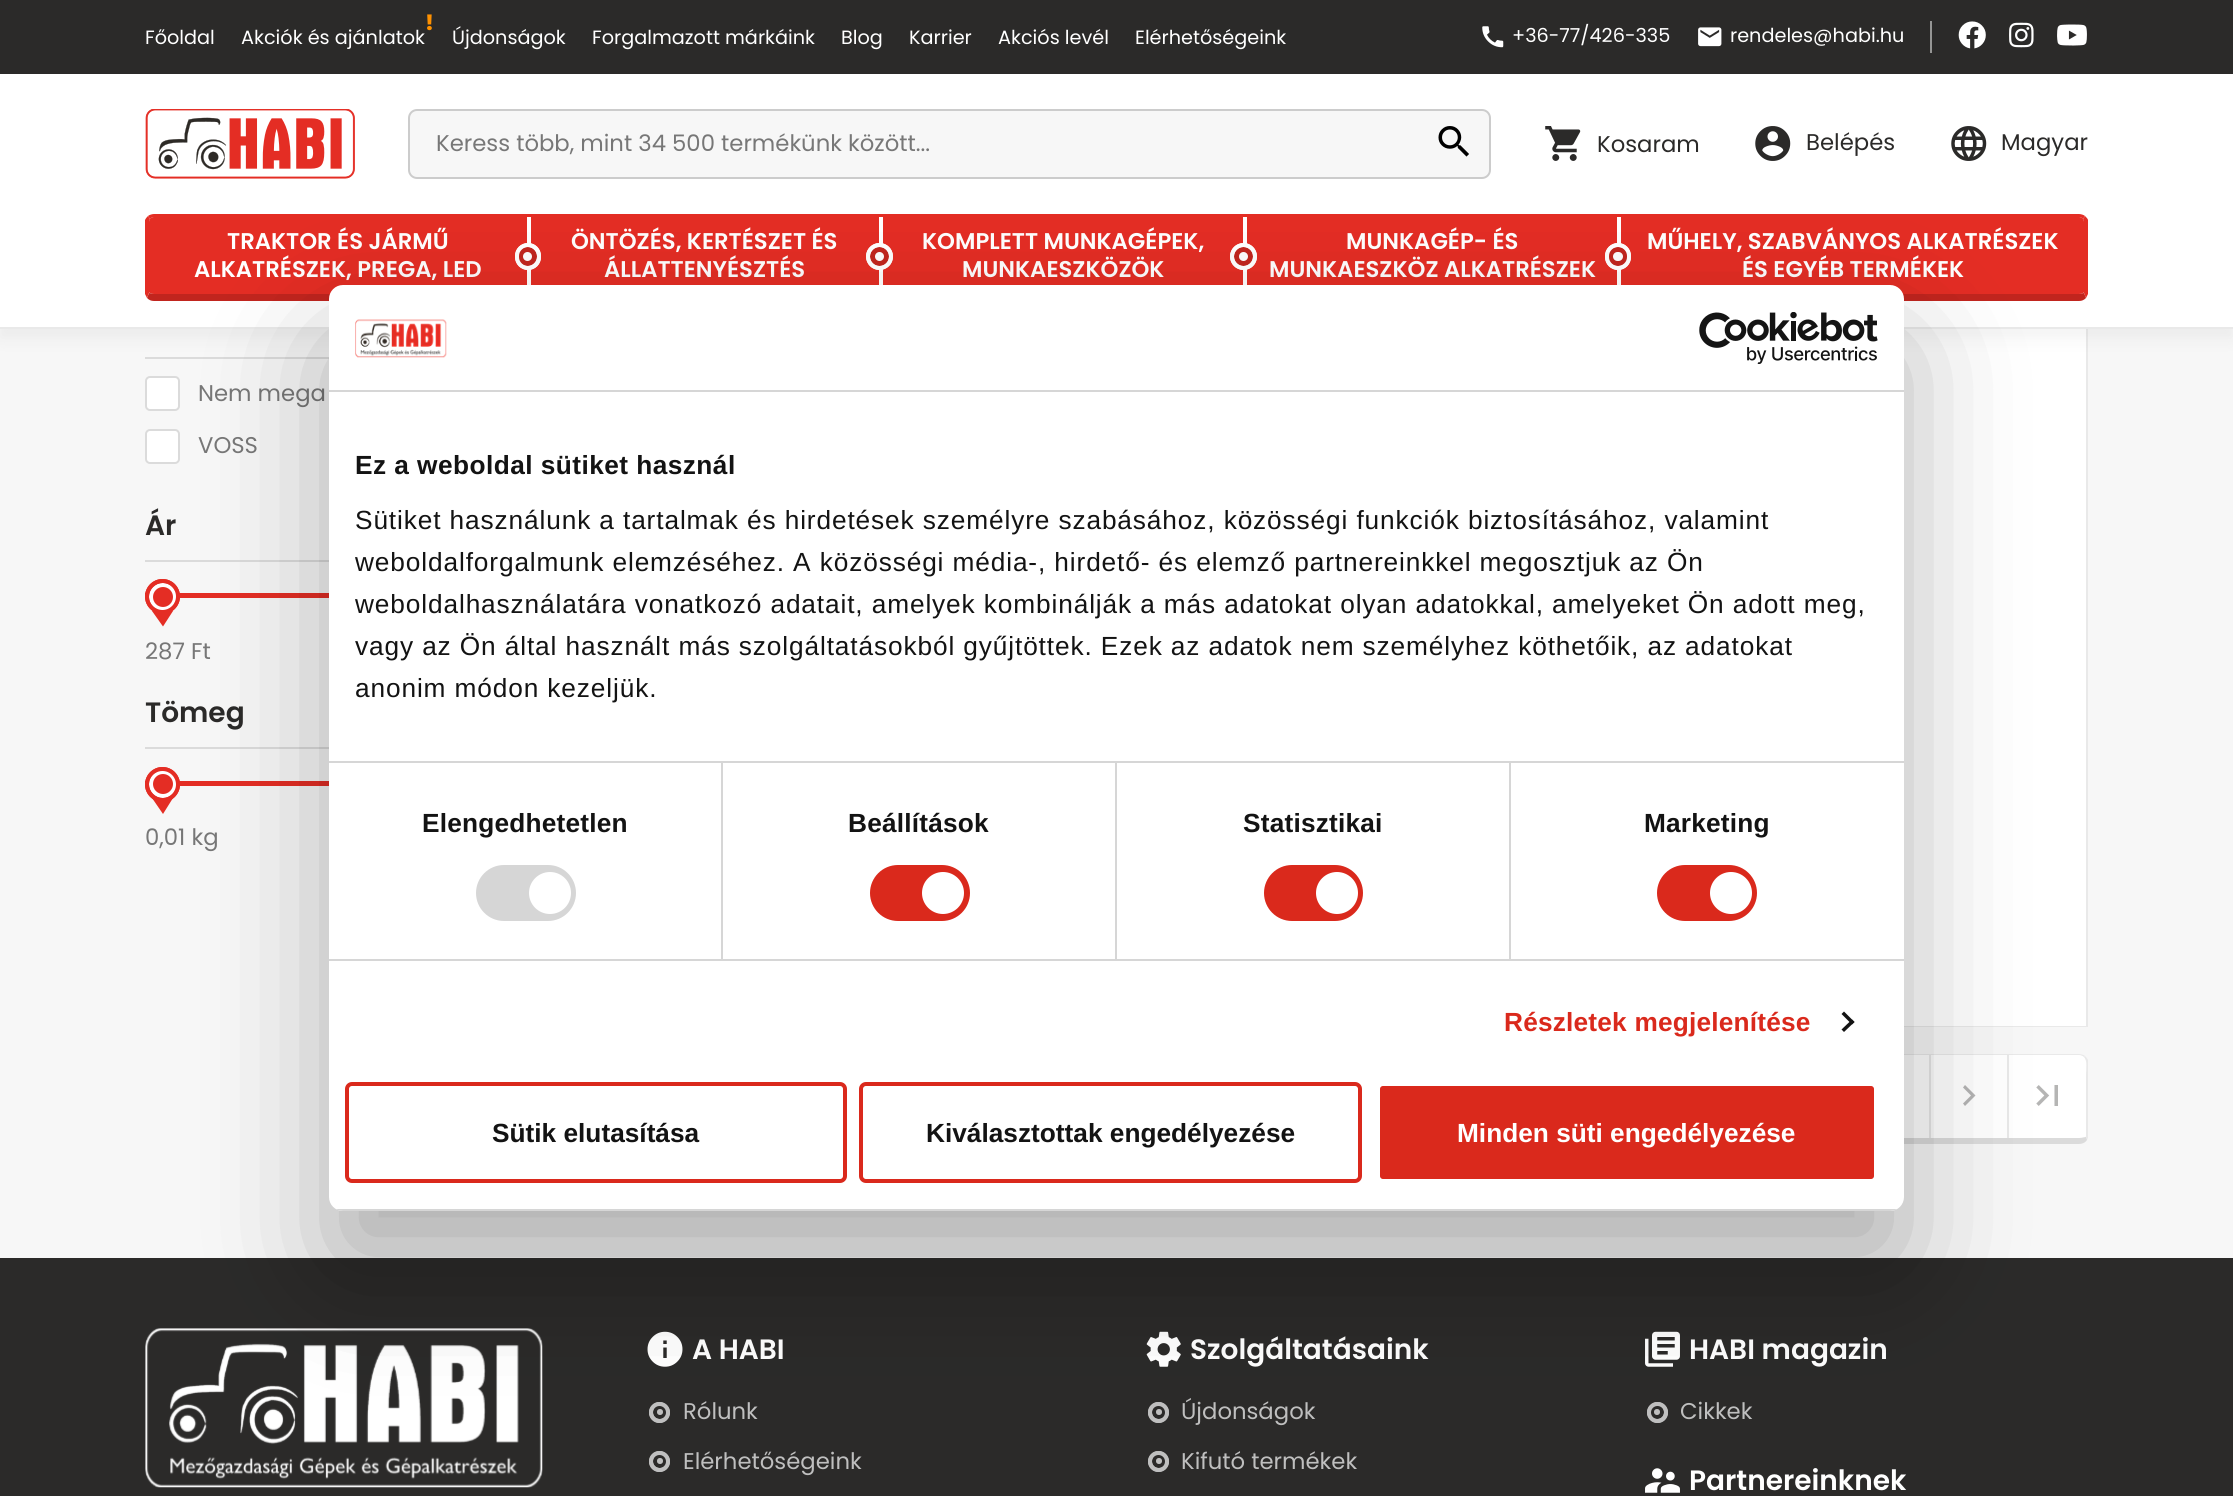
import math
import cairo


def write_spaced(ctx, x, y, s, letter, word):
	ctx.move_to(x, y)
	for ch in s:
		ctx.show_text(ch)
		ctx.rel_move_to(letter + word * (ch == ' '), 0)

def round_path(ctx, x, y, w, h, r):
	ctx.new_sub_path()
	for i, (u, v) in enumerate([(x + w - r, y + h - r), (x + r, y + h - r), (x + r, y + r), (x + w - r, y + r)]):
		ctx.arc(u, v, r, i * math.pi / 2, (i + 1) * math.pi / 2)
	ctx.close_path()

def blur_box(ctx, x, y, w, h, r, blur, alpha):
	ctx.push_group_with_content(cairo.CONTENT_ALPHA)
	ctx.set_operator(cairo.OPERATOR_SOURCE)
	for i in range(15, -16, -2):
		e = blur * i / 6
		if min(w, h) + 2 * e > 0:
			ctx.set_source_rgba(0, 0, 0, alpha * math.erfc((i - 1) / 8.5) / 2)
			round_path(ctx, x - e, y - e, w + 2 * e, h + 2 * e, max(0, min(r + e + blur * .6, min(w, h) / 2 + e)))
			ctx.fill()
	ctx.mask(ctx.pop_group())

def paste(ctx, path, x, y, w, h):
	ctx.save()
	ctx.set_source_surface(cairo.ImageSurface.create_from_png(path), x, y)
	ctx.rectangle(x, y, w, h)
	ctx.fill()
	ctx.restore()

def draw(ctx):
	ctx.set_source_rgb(0.965, 0.965, 0.965)
	ctx.paint()
	ctx.set_source_rgb(0.859, 0.859, 0.859)
	ctx.rectangle(145, 357, 184, 2)
	ctx.fill()
	ctx.set_source_rgb(1, 1, 1)
	ctx.rectangle(1904, 329, 180, 695)
	ctx.fill()
	ctx.rectangle(575, 136, 1512, 890)
	ctx.set_source_rgb(0.914, 0.914, 0.914)
	ctx.stroke()
	ctx.rectangle(577, 138, 1508, 887)
	ctx.set_source_rgb(1, 1, 1)
	ctx.stroke()
	ctx.set_source_rgb(0, 0, 0)
	blur_box(ctx, 0, 9, 2233, 329, 0, 9, 0.05)
	ctx.set_source_rgb(1, 1, 1)
	ctx.rectangle(0, 74, 2233, 253)
	ctx.fill()
	ctx.set_source_rgb(0.169, 0.165, 0.161)
	ctx.rectangle(0, 0, 2233, 74)
	ctx.fill()
	ctx.select_font_face('Poppins')
	ctx.set_font_size(19.25)
	ctx.set_source_rgb(1, 1, 1)
	ctx.move_to(145, 44)
	ctx.show_text('Főoldal')
	ctx.select_font_face('Poppins ExtraBold')
	ctx.set_font_size(21)
	ctx.set_source_rgb(1, 0.569, 0)
	ctx.move_to(425, 30)
	ctx.show_text('!')
	ctx.select_font_face('Poppins')
	ctx.set_font_size(19.25)
	ctx.set_source_rgb(1, 1, 1)
	for x, y, s in [
		(241, 44, 'Akciók és ajánlatok'),
		(452, 44, 'Újdonságok'),
		(592, 44, 'Forgalmazott márkáink'),
		(841, 44, 'Blog'),
		(909, 44, 'Karrier'),
		(998, 44, 'Akciós levél'),
		(1135, 44, 'Elérhetőségeink'),
	]:
		ctx.move_to(x, y)
		ctx.show_text(s)
	paste(ctx, 'media/1.png', 1482, 26, 22, 22)
	ctx.move_to(1512, 42)
	ctx.show_text('+36-77/426-335')
	paste(ctx, 'media/2.png', 1698, 27, 24, 20)
	ctx.move_to(1730, 42)
	ctx.show_text('rendeles@habi.hu')
	ctx.set_source_rgb(0.584, 0.584, 0.58)
	ctx.rectangle(1930, 21, 2, 32)
	ctx.fill()
	paste(ctx, 'media/3.png', 1958, 21, 28, 28)
	paste(ctx, 'media/4.png', 2009, 22, 25, 26)
	paste(ctx, 'media/5.png', 2057, 24, 30, 22)
	ctx.set_source_rgb(0.914, 0.914, 0.914)
	ctx.rectangle(0, 327, 2233, 2)
	ctx.fill()
	paste(ctx, 'media/6.png', 145, 109, 210, 70)
	ctx.set_source_rgb(0.965, 0.965, 0.965)
	round_path(ctx, 409, 110, 1081, 68, 8)
	ctx.fill_preserve()
	ctx.set_source_rgb(0.8, 0.8, 0.8)
	ctx.stroke()
	ctx.set_font_size(22.75)
	ctx.set_source_rgb(0.467, 0.467, 0.467)
	ctx.move_to(436, 151)
	ctx.show_text('Keress több, mint 34 500 termékünk között...')
	paste(ctx, 'media/7.png', 1438, 126, 31, 31)
	paste(ctx, 'media/8.png', 1545, 126, 36, 35)
	ctx.set_source_rgb(0.169, 0.165, 0.161)
	ctx.move_to(1597, 152)
	ctx.show_text('Kosaram')
	paste(ctx, 'media/9.png', 1755, 126, 36, 35)
	ctx.move_to(1806, 150)
	ctx.show_text('Belépés')
	paste(ctx, 'media/10.png', 1951, 126, 36, 35)
	ctx.move_to(2001, 150)
	ctx.show_text('Magyar')
	ctx.set_source_rgb(0.894, 0.176, 0.141)
	ctx.new_path()
	ctx.move_to(154, 217)
	ctx.line_to(2079, 217)
	ctx.curve_to(2082, 217, 2084, 219, 2084, 222)
	ctx.line_to(2084, 292)
	ctx.curve_to(2084, 293, 2082, 294, 2079, 294)
	ctx.line_to(154, 294)
	ctx.curve_to(151, 294, 149, 293, 149, 292)
	ctx.line_to(149, 222)
	ctx.curve_to(149, 219, 151, 217, 154, 217)
	ctx.close_path()
	ctx.fill()
	ctx.new_path()
	ctx.move_to(154, 214)
	ctx.curve_to(152, 214, 149, 215, 148, 216)
	ctx.line_to(150, 219)
	ctx.curve_to(151, 218, 152, 217, 154, 217)
	ctx.line_to(2079, 217)
	ctx.curve_to(2081, 217, 2082, 218, 2083, 219)
	ctx.line_to(2085, 216)
	ctx.curve_to(2084, 215, 2081, 214, 2079, 214)
	ctx.close_path()
	ctx.fill()
	ctx.new_path()
	ctx.move_to(2085, 216)
	ctx.curve_to(2086, 217, 2088, 219, 2088, 220)
	ctx.line_to(2088, 294)
	ctx.line_to(2086, 298)
	ctx.line_to(2084, 293)
	ctx.line_to(2084, 292)
	ctx.line_to(2084, 221)
	ctx.line_to(2083, 219)
	ctx.close_path()
	ctx.fill()
	ctx.set_source_rgb(0.757, 0.145, 0.118)
	ctx.new_path()
	ctx.move_to(154, 301)
	ctx.line_to(2079, 301)
	ctx.curve_to(2082, 301, 2084, 300, 2086, 298)
	ctx.line_to(2084, 293)
	ctx.curve_to(2083, 293, 2081, 294, 2079, 294)
	ctx.line_to(154, 294)
	ctx.curve_to(152, 294, 150, 293, 149, 293)
	ctx.line_to(147, 298)
	ctx.curve_to(149, 300, 151, 301, 154, 301)
	ctx.close_path()
	ctx.fill()
	ctx.set_source_rgb(0.894, 0.176, 0.141)
	ctx.new_path()
	ctx.move_to(145, 220)
	ctx.curve_to(146, 218, 147, 217, 148, 216)
	ctx.line_to(150, 219)
	ctx.line_to(149, 221)
	ctx.line_to(149, 292)
	ctx.line_to(149, 293)
	ctx.line_to(147, 298)
	ctx.line_to(145, 294)
	ctx.close_path()
	ctx.fill()
	ctx.set_source_rgb(1, 1, 1)
	ctx.rectangle(527, 217, 4, 68)
	ctx.fill()
	ctx.select_font_face('Poppins SemiBold')
	ctx.move_to(227, 249)
	ctx.show_text('TRAKTOR ÉS JÁRMŰ')
	ctx.move_to(194, 277)
	ctx.show_text('ALKATRÉSZEK, PREGA, LED')
	round_path(ctx, 515, 243, 26, 27, 13)
	ctx.fill()
	ctx.arc(527.5, 256.5, 7, 0, 2 * math.pi)
	ctx.set_source_rgb(0.757, 0.145, 0.118)
	ctx.set_line_width(5)
	ctx.stroke()
	round_path(ctx, 517, 245, 22, 23, 11)
	ctx.set_source_rgb(1, 1, 1)
	ctx.set_line_width(4)
	ctx.stroke()
	ctx.rectangle(879, 217, 4, 68)
	ctx.fill()
	ctx.move_to(571, 249)
	ctx.show_text('ÖNTÖZÉS, KERTÉSZET ÉS')
	ctx.move_to(604, 277)
	ctx.show_text('ÁLLATTENYÉSZTÉS')
	ctx.new_path()
	ctx.arc(879.5, 256.5, 13.5, 0, 2 * math.pi)
	ctx.fill()
	ctx.arc(879.5, 256.5, 7, 0, 2 * math.pi)
	ctx.set_source_rgb(0.757, 0.145, 0.118)
	ctx.set_line_width(5)
	ctx.stroke()
	ctx.arc(879.5, 256.5, 11.5, 0, 2 * math.pi)
	ctx.set_source_rgb(1, 1, 1)
	ctx.set_line_width(4)
	ctx.stroke()
	ctx.rectangle(1243, 217, 4, 68)
	ctx.fill()
	ctx.move_to(922, 249)
	ctx.show_text('KOMPLETT MUNKAGÉPEK,')
	ctx.move_to(962, 277)
	ctx.show_text('MUNKAESZKÖZÖK')
	ctx.new_path()
	ctx.arc(1243.5, 256.5, 13.5, 0, 2 * math.pi)
	ctx.fill()
	ctx.arc(1243.5, 256.5, 7, 0, 2 * math.pi)
	ctx.set_source_rgb(0.757, 0.145, 0.118)
	ctx.set_line_width(5)
	ctx.stroke()
	ctx.arc(1243.5, 256.5, 11.5, 0, 2 * math.pi)
	ctx.set_source_rgb(1, 1, 1)
	ctx.set_line_width(4)
	ctx.stroke()
	ctx.rectangle(1617, 217, 4, 68)
	ctx.fill()
	ctx.move_to(1346, 249)
	ctx.show_text('MUNKAGÉP- ÉS')
	ctx.move_to(1269, 277)
	ctx.show_text('MUNKAESZKÖZ ALKATRÉSZEK')
	round_path(ctx, 1605, 243, 26, 27, 13)
	ctx.fill()
	round_path(ctx, 1610.5, 249.5, 15, 14, 7)
	ctx.set_source_rgb(0.757, 0.145, 0.118)
	ctx.set_line_width(5)
	ctx.stroke()
	round_path(ctx, 1607, 245, 22, 23, 11)
	ctx.set_source_rgb(1, 1, 1)
	ctx.set_line_width(4)
	ctx.stroke()
	ctx.move_to(1647, 249)
	ctx.show_text('MŰHELY, SZABVÁNYOS ALKATRÉSZEK')
	ctx.move_to(1742, 277)
	ctx.show_text('ÉS EGYÉB TERMÉKEK')
	round_path(ctx, 146, 377, 33, 33, 4)
	ctx.fill_preserve()
	ctx.set_source_rgb(0.859, 0.859, 0.859)
	ctx.set_line_width(2)
	ctx.stroke()
	ctx.select_font_face('Poppins')
	ctx.set_source_rgb(0.467, 0.467, 0.467)
	ctx.move_to(198, 401)
	ctx.show_text('Nem mega')
	ctx.set_source_rgb(1, 1, 1)
	round_path(ctx, 146, 430, 33, 33, 4)
	ctx.fill_preserve()
	ctx.set_source_rgb(0.859, 0.859, 0.859)
	ctx.stroke()
	ctx.set_source_rgb(0.467, 0.467, 0.467)
	ctx.move_to(198, 453)
	ctx.show_text('VOSS')
	ctx.set_source_rgb(0.859, 0.859, 0.859)
	ctx.rectangle(145, 560, 184, 2)
	ctx.fill()
	ctx.select_font_face('Poppins SemiBold')
	ctx.set_font_size(28)
	ctx.set_source_rgb(0.169, 0.165, 0.161)
	ctx.move_to(145, 535)
	ctx.show_text('Ár')
	ctx.set_source_rgb(0.894, 0.176, 0.141)
	ctx.rectangle(145, 593, 184, 5)
	ctx.fill()
	ctx.arc(162.5, 596.5, 17.5, 0, 2 * math.pi)
	ctx.fill()
	ctx.arc(163, 597, 12, 0, 2 * math.pi)
	ctx.set_source_rgb(1, 1, 1)
	ctx.set_line_width(4)
	ctx.stroke()
	ctx.arc(162.5, 596.5, 15.5, 0, 2 * math.pi)
	ctx.set_source_rgb(0.894, 0.176, 0.141)
	ctx.stroke()
	ctx.new_path()
	ctx.move_to(152, 611)
	ctx.line_to(173, 611)
	ctx.line_to(163, 626.5)
	ctx.close_path()
	ctx.fill()
	ctx.select_font_face('Poppins')
	ctx.set_font_size(22.75)
	ctx.set_source_rgb(0.467, 0.467, 0.467)
	ctx.move_to(145, 659)
	ctx.show_text('287 Ft')
	ctx.set_source_rgb(0.859, 0.859, 0.859)
	ctx.rectangle(145, 747, 184, 2)
	ctx.fill()
	ctx.select_font_face('Poppins SemiBold')
	ctx.set_font_size(28)
	ctx.set_source_rgb(0.169, 0.165, 0.161)
	ctx.move_to(145, 722)
	ctx.show_text('Tömeg')
	ctx.set_source_rgb(0.894, 0.176, 0.141)
	ctx.rectangle(145, 781, 184, 5)
	ctx.fill()
	ctx.arc(162.5, 784.5, 17.5, 0, 2 * math.pi)
	ctx.fill()
	ctx.arc(163, 784, 12, 0, 2 * math.pi)
	ctx.set_source_rgb(1, 1, 1)
	ctx.stroke()
	ctx.arc(162.5, 784.5, 15.5, 0, 2 * math.pi)
	ctx.set_source_rgb(0.894, 0.176, 0.141)
	ctx.stroke()
	ctx.new_path()
	ctx.move_to(152, 798)
	ctx.line_to(173, 798)
	ctx.line_to(163, 814)
	ctx.close_path()
	ctx.fill()
	ctx.select_font_face('Poppins')
	ctx.set_font_size(22.75)
	ctx.set_source_rgb(0.467, 0.467, 0.467)
	ctx.move_to(145, 845)
	ctx.show_text('0,01 kg')
	ctx.set_source_rgb(1, 1, 1)
	ctx.new_path()
	ctx.move_to(583, 1055)
	ctx.line_to(2079, 1055)
	ctx.curve_to(2083, 1055, 2086, 1058, 2086, 1062)
	ctx.line_to(2086, 1136)
	ctx.curve_to(2086, 1137, 2083, 1138, 2079, 1138)
	ctx.line_to(583, 1138)
	ctx.curve_to(579, 1138, 576, 1137, 576, 1136)
	ctx.line_to(576, 1062)
	ctx.curve_to(576, 1058, 579, 1055, 583, 1055)
	ctx.close_path()
	ctx.fill()
	ctx.set_source_rgb(0.914, 0.914, 0.914)
	ctx.new_path()
	ctx.move_to(583, 1054)
	ctx.curve_to(580, 1054, 578, 1055, 577, 1056)
	ctx.line_to(578, 1057)
	ctx.curve_to(579, 1056, 581, 1055, 583, 1055)
	ctx.line_to(2079, 1055)
	ctx.curve_to(2081, 1055, 2083, 1056, 2084, 1057)
	ctx.line_to(2085, 1056)
	ctx.curve_to(2084, 1055, 2081, 1054, 2079, 1054)
	ctx.close_path()
	ctx.fill()
	ctx.new_path()
	ctx.move_to(2085, 1056)
	ctx.curve_to(2086, 1057, 2087, 1058, 2088, 1060)
	ctx.line_to(2088, 1138)
	ctx.line_to(2087, 1140)
	ctx.line_to(2086, 1137)
	ctx.line_to(2086, 1074)
	ctx.curve_to(2086, 1071, 2088, 1061, 2084, 1057)
	ctx.close_path()
	ctx.fill()
	ctx.set_source_rgb(0.859, 0.859, 0.859)
	ctx.new_path()
	ctx.move_to(2087, 1140)
	ctx.curve_to(2085, 1143, 2082, 1144, 2079, 1144)
	ctx.line_to(583, 1144)
	ctx.curve_to(580, 1144, 577, 1143, 575, 1140)
	ctx.line_to(576, 1136)
	ctx.curve_to(577, 1137, 579, 1138, 583, 1138)
	ctx.line_to(2079, 1138)
	ctx.curve_to(2082, 1138, 2085, 1137, 2086, 1137)
	ctx.close_path()
	ctx.fill()
	ctx.set_source_rgb(0.914, 0.914, 0.914)
	ctx.rectangle(1929, 1055, 2, 83)
	ctx.fill()
	ctx.set_source_rgb(0.71, 0.706, 0.706)
	ctx.new_path()
	ctx.move_to(1965, 1085)
	ctx.line_to(1975.5, 1095.5)
	ctx.line_to(1965, 1106)
	ctx.line_to(1963, 1103.5)
	ctx.line_to(1971, 1095.5)
	ctx.line_to(1963, 1087.5)
	ctx.close_path()
	ctx.fill()
	ctx.set_source_rgb(0.914, 0.914, 0.914)
	ctx.rectangle(2007, 1055, 2, 83)
	ctx.fill()
	paste(ctx, 'media/11.png', 2036, 1085, 22, 21)
	ctx.set_source_rgb(0.169, 0.165, 0.161)
	ctx.rectangle(0, 1258, 2233, 238)
	ctx.fill()
	paste(ctx, 'media/12.png', 145, 1328, 398, 160)
	paste(ctx, 'media/13.png', 647, 1331, 36, 36)
	ctx.select_font_face('Poppins SemiBold')
	ctx.set_font_size(28)
	ctx.set_source_rgb(1, 1, 1)
	ctx.move_to(692, 1359)
	ctx.show_text('A HABI')
	ctx.set_source_rgb(0.749, 0.749, 0.749)
	ctx.new_path()
	ctx.arc(659.5, 1412.5, 10.5, 0, 2 * math.pi)
	ctx.fill()
	ctx.arc(660, 1412, 5, 0, 2 * math.pi)
	ctx.set_source_rgb(0.169, 0.165, 0.161)
	ctx.stroke()
	ctx.arc(659.5, 1412.5, 8.5, 0, 2 * math.pi)
	ctx.set_source_rgb(0.749, 0.749, 0.749)
	ctx.stroke()
	ctx.select_font_face('Poppins')
	ctx.set_font_size(22.75)
	ctx.move_to(683, 1419)
	ctx.show_text('Rólunk')
	ctx.new_path()
	ctx.arc(659.5, 1461.5, 10.5, 0, 2 * math.pi)
	ctx.fill()
	ctx.arc(660, 1461, 5, 0, 2 * math.pi)
	ctx.set_source_rgb(0.169, 0.165, 0.161)
	ctx.stroke()
	ctx.arc(659.5, 1461.5, 8.5, 0, 2 * math.pi)
	ctx.set_source_rgb(0.749, 0.749, 0.749)
	ctx.stroke()
	ctx.move_to(683, 1469)
	ctx.show_text('Elérhetőségeink')
	paste(ctx, 'media/14.png', 1146, 1331, 35, 36)
	ctx.select_font_face('Poppins SemiBold')
	ctx.set_font_size(28)
	ctx.set_source_rgb(1, 1, 1)
	ctx.move_to(1190, 1359)
	ctx.show_text('Szolgáltatásaink')
	ctx.set_source_rgb(0.749, 0.749, 0.749)
	ctx.new_path()
	ctx.arc(1158.5, 1412.5, 10.5, 0, 2 * math.pi)
	ctx.fill()
	ctx.arc(1159, 1412, 5, 0, 2 * math.pi)
	ctx.set_source_rgb(0.169, 0.165, 0.161)
	ctx.stroke()
	ctx.arc(1158.5, 1412.5, 8.5, 0, 2 * math.pi)
	ctx.set_source_rgb(0.749, 0.749, 0.749)
	ctx.stroke()
	ctx.select_font_face('Poppins')
	ctx.set_font_size(22.75)
	ctx.move_to(1181, 1419)
	ctx.show_text('Újdonságok')
	ctx.new_path()
	ctx.arc(1158.5, 1461.5, 10.5, 0, 2 * math.pi)
	ctx.fill()
	ctx.arc(1159, 1461, 5, 0, 2 * math.pi)
	ctx.set_source_rgb(0.169, 0.165, 0.161)
	ctx.stroke()
	ctx.arc(1158.5, 1461.5, 8.5, 0, 2 * math.pi)
	ctx.set_source_rgb(0.749, 0.749, 0.749)
	ctx.stroke()
	ctx.move_to(1181, 1469)
	ctx.show_text('Kifutó termékek')
	paste(ctx, 'media/15.png', 1645, 1331, 35, 36)
	ctx.select_font_face('Poppins SemiBold')
	ctx.set_font_size(28)
	ctx.set_source_rgb(1, 1, 1)
	ctx.move_to(1689, 1359)
	ctx.show_text('HABI magazin')
	ctx.set_source_rgb(0.749, 0.749, 0.749)
	ctx.new_path()
	ctx.arc(1657.5, 1412.5, 10.5, 0, 2 * math.pi)
	ctx.fill()
	ctx.arc(1657, 1412, 5, 0, 2 * math.pi)
	ctx.set_source_rgb(0.169, 0.165, 0.161)
	ctx.stroke()
	ctx.arc(1657.5, 1412.5, 8.5, 0, 2 * math.pi)
	ctx.set_source_rgb(0.749, 0.749, 0.749)
	ctx.stroke()
	ctx.select_font_face('Poppins')
	ctx.set_font_size(22.75)
	ctx.move_to(1680, 1419)
	ctx.show_text('Cikkek')
	paste(ctx, 'media/16.png', 1645, 1468, 35, 25)
	ctx.select_font_face('Poppins SemiBold')
	ctx.set_font_size(28)
	ctx.set_source_rgb(1, 1, 1)
	ctx.move_to(1689, 1490)
	ctx.show_text('Partnereinknek')
	ctx.set_source_rgb(0, 0, 0)
	blur_box(ctx, 329, 341, 1575, 926, 14, 59.5, 0.3)
	ctx.set_source_rgb(1, 1, 1)
	round_path(ctx, 329, 285, 1575, 926, 14)
	ctx.fill()
	ctx.set_source_rgb(0.839, 0.839, 0.839)
	ctx.rectangle(329, 390, 1575, 2)
	ctx.fill()
	paste(ctx, 'media/17.png', 355, 319, 92, 39)
	paste(ctx, 'media/18.png', 1699, 312, 179, 52)
	ctx.rectangle(329, 761, 1575, 2)
	ctx.fill()
	ctx.select_font_face('Liberation Sans', cairo.FONT_SLANT_NORMAL, cairo.FONT_WEIGHT_BOLD)
	ctx.set_font_size(26.25)
	ctx.set_source_rgb(0.078, 0.078, 0.078)
	write_spaced(ctx, 355, 474, 'Ez a weboldal sütiket használ', 0.45, 0)
	ctx.select_font_face('Liberation Sans')
	for x, y, s in [
		(355, 529, 'Sütiket használunk a tartalmak és hirdetések személyre szabásához, közösségi funkciók biztosításához, valamint'),
		(355, 571, 'weboldalforgalmunk elemzéséhez. A közösségi média-, hirdető- és elemző partnereinkkel megosztjuk az Ön'),
		(355, 613, 'weboldalhasználatára vonatkozó adatait, amelyek kombinálják a más adatokat olyan adatokkal, amelyeket Ön adott meg,'),
		(355, 655, 'vagy az Ön által használt más szolgáltatásokból gyűjtöttek. Ezek az adatok nem személyhez köthetőik, az adatokat'),
		(355, 697, 'anonim módon kezeljük.'),
	]:
		write_spaced(ctx, x, y, s, 0.88, 0)
	ctx.set_source_rgb(0.839, 0.839, 0.839)
	ctx.rectangle(329, 959, 1575, 2)
	ctx.fill()
	ctx.rectangle(721, 763, 2, 196)
	ctx.fill()
	ctx.select_font_face('Liberation Sans', cairo.FONT_SLANT_NORMAL, cairo.FONT_WEIGHT_BOLD)
	ctx.set_source_rgb(0.078, 0.078, 0.078)
	write_spaced(ctx, 422, 832, 'Elengedhetetlen', 0.2, 0)
	ctx.set_source_rgb(0.839, 0.839, 0.839)
	round_path(ctx, 476, 865, 100, 56, 28)
	ctx.fill()
	ctx.set_source_rgb(1, 1, 1)
	ctx.arc(550, 893, 21, 0, 2 * math.pi)
	ctx.fill()
	ctx.set_source_rgb(0.839, 0.839, 0.839)
	ctx.rectangle(1115, 763, 2, 196)
	ctx.fill()
	ctx.set_source_rgb(0.078, 0.078, 0.078)
	write_spaced(ctx, 848, 832, 'Beállítások', 0.2, 0)
	ctx.set_source_rgb(0.855, 0.161, 0.11)
	round_path(ctx, 870, 865, 100, 56, 28)
	ctx.fill()
	ctx.set_source_rgb(1, 1, 1)
	ctx.arc(943, 893, 21, 0, 2 * math.pi)
	ctx.fill()
	ctx.set_source_rgb(0.839, 0.839, 0.839)
	ctx.rectangle(1509, 763, 2, 196)
	ctx.fill()
	ctx.set_source_rgb(0.078, 0.078, 0.078)
	write_spaced(ctx, 1243, 832, 'Statisztikai', 0.2, 0)
	ctx.set_source_rgb(0.855, 0.161, 0.11)
	round_path(ctx, 1264, 865, 99, 56, 28)
	ctx.fill()
	ctx.set_source_rgb(1, 1, 1)
	ctx.arc(1337, 893, 21, 0, 2 * math.pi)
	ctx.fill()
	ctx.set_source_rgb(0.078, 0.078, 0.078)
	write_spaced(ctx, 1644, 832, 'Marketing', 0.2, 0)
	ctx.set_source_rgb(0.855, 0.161, 0.11)
	round_path(ctx, 1657, 865, 100, 56, 28)
	ctx.fill()
	ctx.set_source_rgb(1, 1, 1)
	ctx.arc(1731, 893, 21, 0, 2 * math.pi)
	ctx.fill()
	ctx.set_source_rgb(0.855, 0.161, 0.11)
	write_spaced(ctx, 1504, 1031, 'Részletek megjelenítése', 0.2, 0)
	ctx.set_source_rgb(0.078, 0.078, 0.078)
	ctx.new_path()
	ctx.move_to(1844, 1011.5)
	ctx.line_to(1854.5, 1022)
	ctx.line_to(1852, 1024.5)
	ctx.line_to(1841.5, 1014)
	ctx.close_path()
	ctx.fill()
	ctx.new_path()
	ctx.move_to(1852, 1019.5)
	ctx.line_to(1854.5, 1022)
	ctx.line_to(1844, 1032)
	ctx.line_to(1841.5, 1029.5)
	ctx.close_path()
	ctx.fill()
	ctx.save()
	round_path(ctx, 329, 285, 1575, 926, 14)
	ctx.clip()
	ctx.set_source_rgb(0.839, 0.839, 0.839)
	ctx.rectangle(329, 1209, 1575, 2)
	ctx.fill()
	ctx.restore()
	round_path(ctx, 347, 1084, 498, 97, 5)
	ctx.set_source_rgb(0.855, 0.161, 0.11)
	ctx.stroke()
	ctx.set_source_rgb(0.078, 0.078, 0.078)
	ctx.move_to(492, 1142)
	ctx.show_text('Sütik elutasítása')
	round_path(ctx, 861, 1084, 499, 97, 5)
	ctx.set_source_rgb(0.855, 0.161, 0.11)
	ctx.stroke()
	ctx.set_source_rgb(0.078, 0.078, 0.078)
	ctx.move_to(926, 1142)
	ctx.show_text('Kiválasztottak engedélyezése')
	ctx.set_source_rgb(0.855, 0.161, 0.11)
	round_path(ctx, 1378, 1084, 498, 97, 5)
	ctx.fill_preserve()
	ctx.set_source_rgb(1, 1, 1)
	ctx.stroke()
	ctx.move_to(1457, 1142)
	ctx.show_text('Minden süti engedélyezése')


surface = cairo.ImageSurface(cairo.FORMAT_RGB24, 2233, 1496)
ctx = cairo.Context(surface)
options = cairo.FontOptions()
options.set_hint_metrics(cairo.HINT_METRICS_OFF)
options.set_hint_style(cairo.HINT_STYLE_NONE)
ctx.set_font_options(options)
ctx.set_miter_limit(4)
draw(ctx)
surface.write_to_png('image.png')
